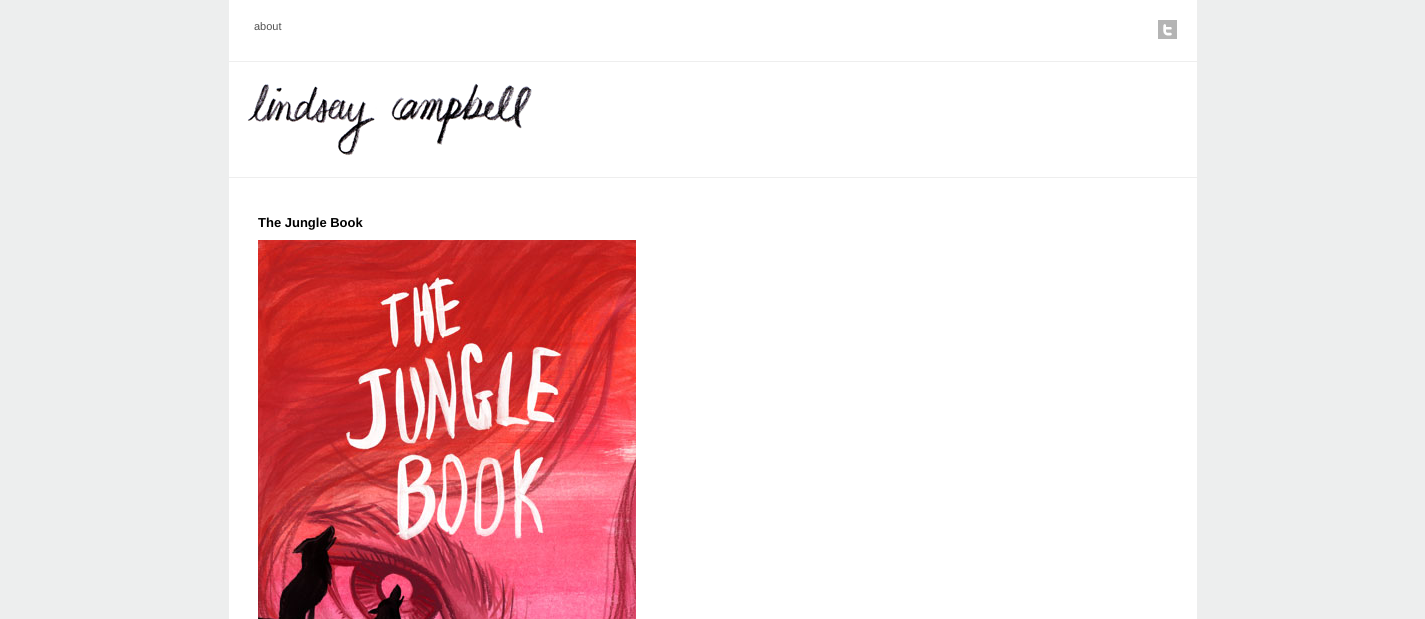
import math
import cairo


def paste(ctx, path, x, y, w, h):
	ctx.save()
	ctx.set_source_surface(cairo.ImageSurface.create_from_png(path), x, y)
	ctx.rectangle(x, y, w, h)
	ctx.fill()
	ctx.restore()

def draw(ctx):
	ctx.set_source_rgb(0.929, 0.933, 0.933)
	ctx.paint()
	ctx.set_source_rgb(1, 1, 1)
	ctx.rectangle(229, 0, 968, 619)
	ctx.fill()
	ctx.set_source_rgb(0.933, 0.933, 0.933)
	ctx.rectangle(229, 61, 968, 1)
	ctx.fill()
	ctx.select_font_face('Liberation Sans')
	ctx.set_font_size(11)
	ctx.set_source_rgb(0.322, 0.322, 0.322)
	ctx.move_to(254, 30)
	ctx.show_text('about')
	paste(ctx, 'media/1.png', 1158, 20, 19, 19)
	ctx.set_source_rgb(0.933, 0.933, 0.933)
	ctx.rectangle(229, 177, 968, 1)
	ctx.fill()
	paste(ctx, 'media/2.png', 247, 83, 285, 73)
	ctx.select_font_face('Liberation Sans', cairo.FONT_SLANT_NORMAL, cairo.FONT_WEIGHT_BOLD)
	ctx.set_font_size(13)
	ctx.set_source_rgb(0, 0, 0)
	ctx.move_to(258, 227)
	ctx.show_text('The Jungle Book')
	paste(ctx, 'media/3.png', 258, 240, 378, 379)


surface = cairo.ImageSurface(cairo.FORMAT_RGB24, 1425, 619)
ctx = cairo.Context(surface)
options = cairo.FontOptions()
options.set_hint_metrics(cairo.HINT_METRICS_OFF)
options.set_hint_style(cairo.HINT_STYLE_NONE)
ctx.set_font_options(options)
ctx.set_miter_limit(4)
draw(ctx)
surface.write_to_png('image.png')
